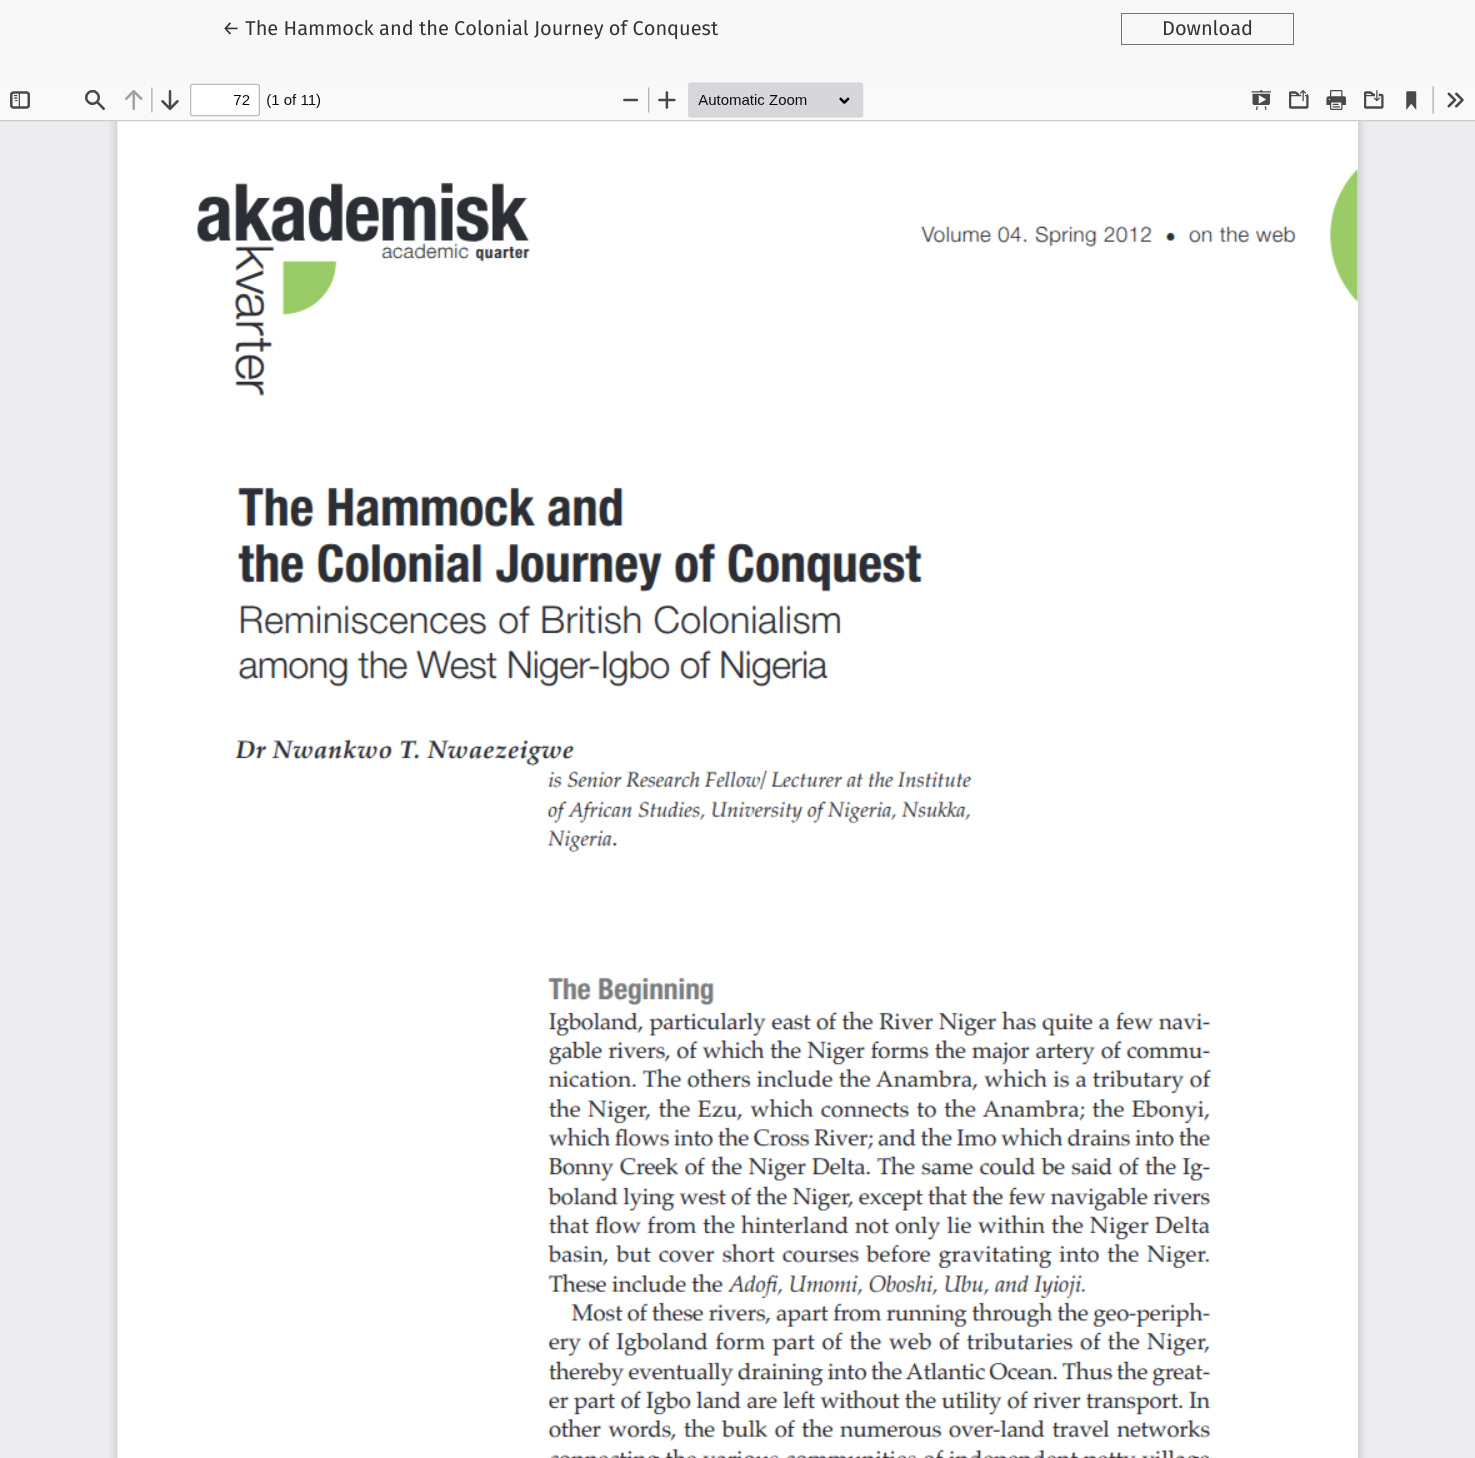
import math
import cairo


def paste(ctx, path, x, y, w, h):
	ctx.save()
	ctx.set_source_surface(cairo.ImageSurface.create_from_png(path), x, y)
	ctx.rectangle(x, y, w, h)
	ctx.fill()
	ctx.restore()

def draw(ctx):
	ctx.set_source_rgb(0.969, 0.969, 0.969)
	ctx.paint()
	ctx.select_font_face('Fira Sans')
	ctx.set_font_size(20)
	ctx.set_source_rgb(0.2, 0.2, 0.2)
	ctx.move_to(222, 35)
	ctx.show_text('← The Hammock and the Colonial Journey of Conquest')
	ctx.rectangle(1121.5, 13.5, 172, 31)
	ctx.set_source_rgb(0.459, 0.459, 0.459)
	ctx.set_line_width(1)
	ctx.stroke()
	ctx.set_source_rgb(0.2, 0.2, 0.2)
	ctx.move_to(1162, 35)
	ctx.show_text('Download')
	paste(ctx, 'media/1.png', 0, 82, 1475, 1376)


surface = cairo.ImageSurface(cairo.FORMAT_RGB24, 1475, 1458)
ctx = cairo.Context(surface)
options = cairo.FontOptions()
options.set_hint_metrics(cairo.HINT_METRICS_OFF)
options.set_hint_style(cairo.HINT_STYLE_NONE)
ctx.set_font_options(options)
ctx.set_miter_limit(4)
draw(ctx)
surface.write_to_png('image.png')
